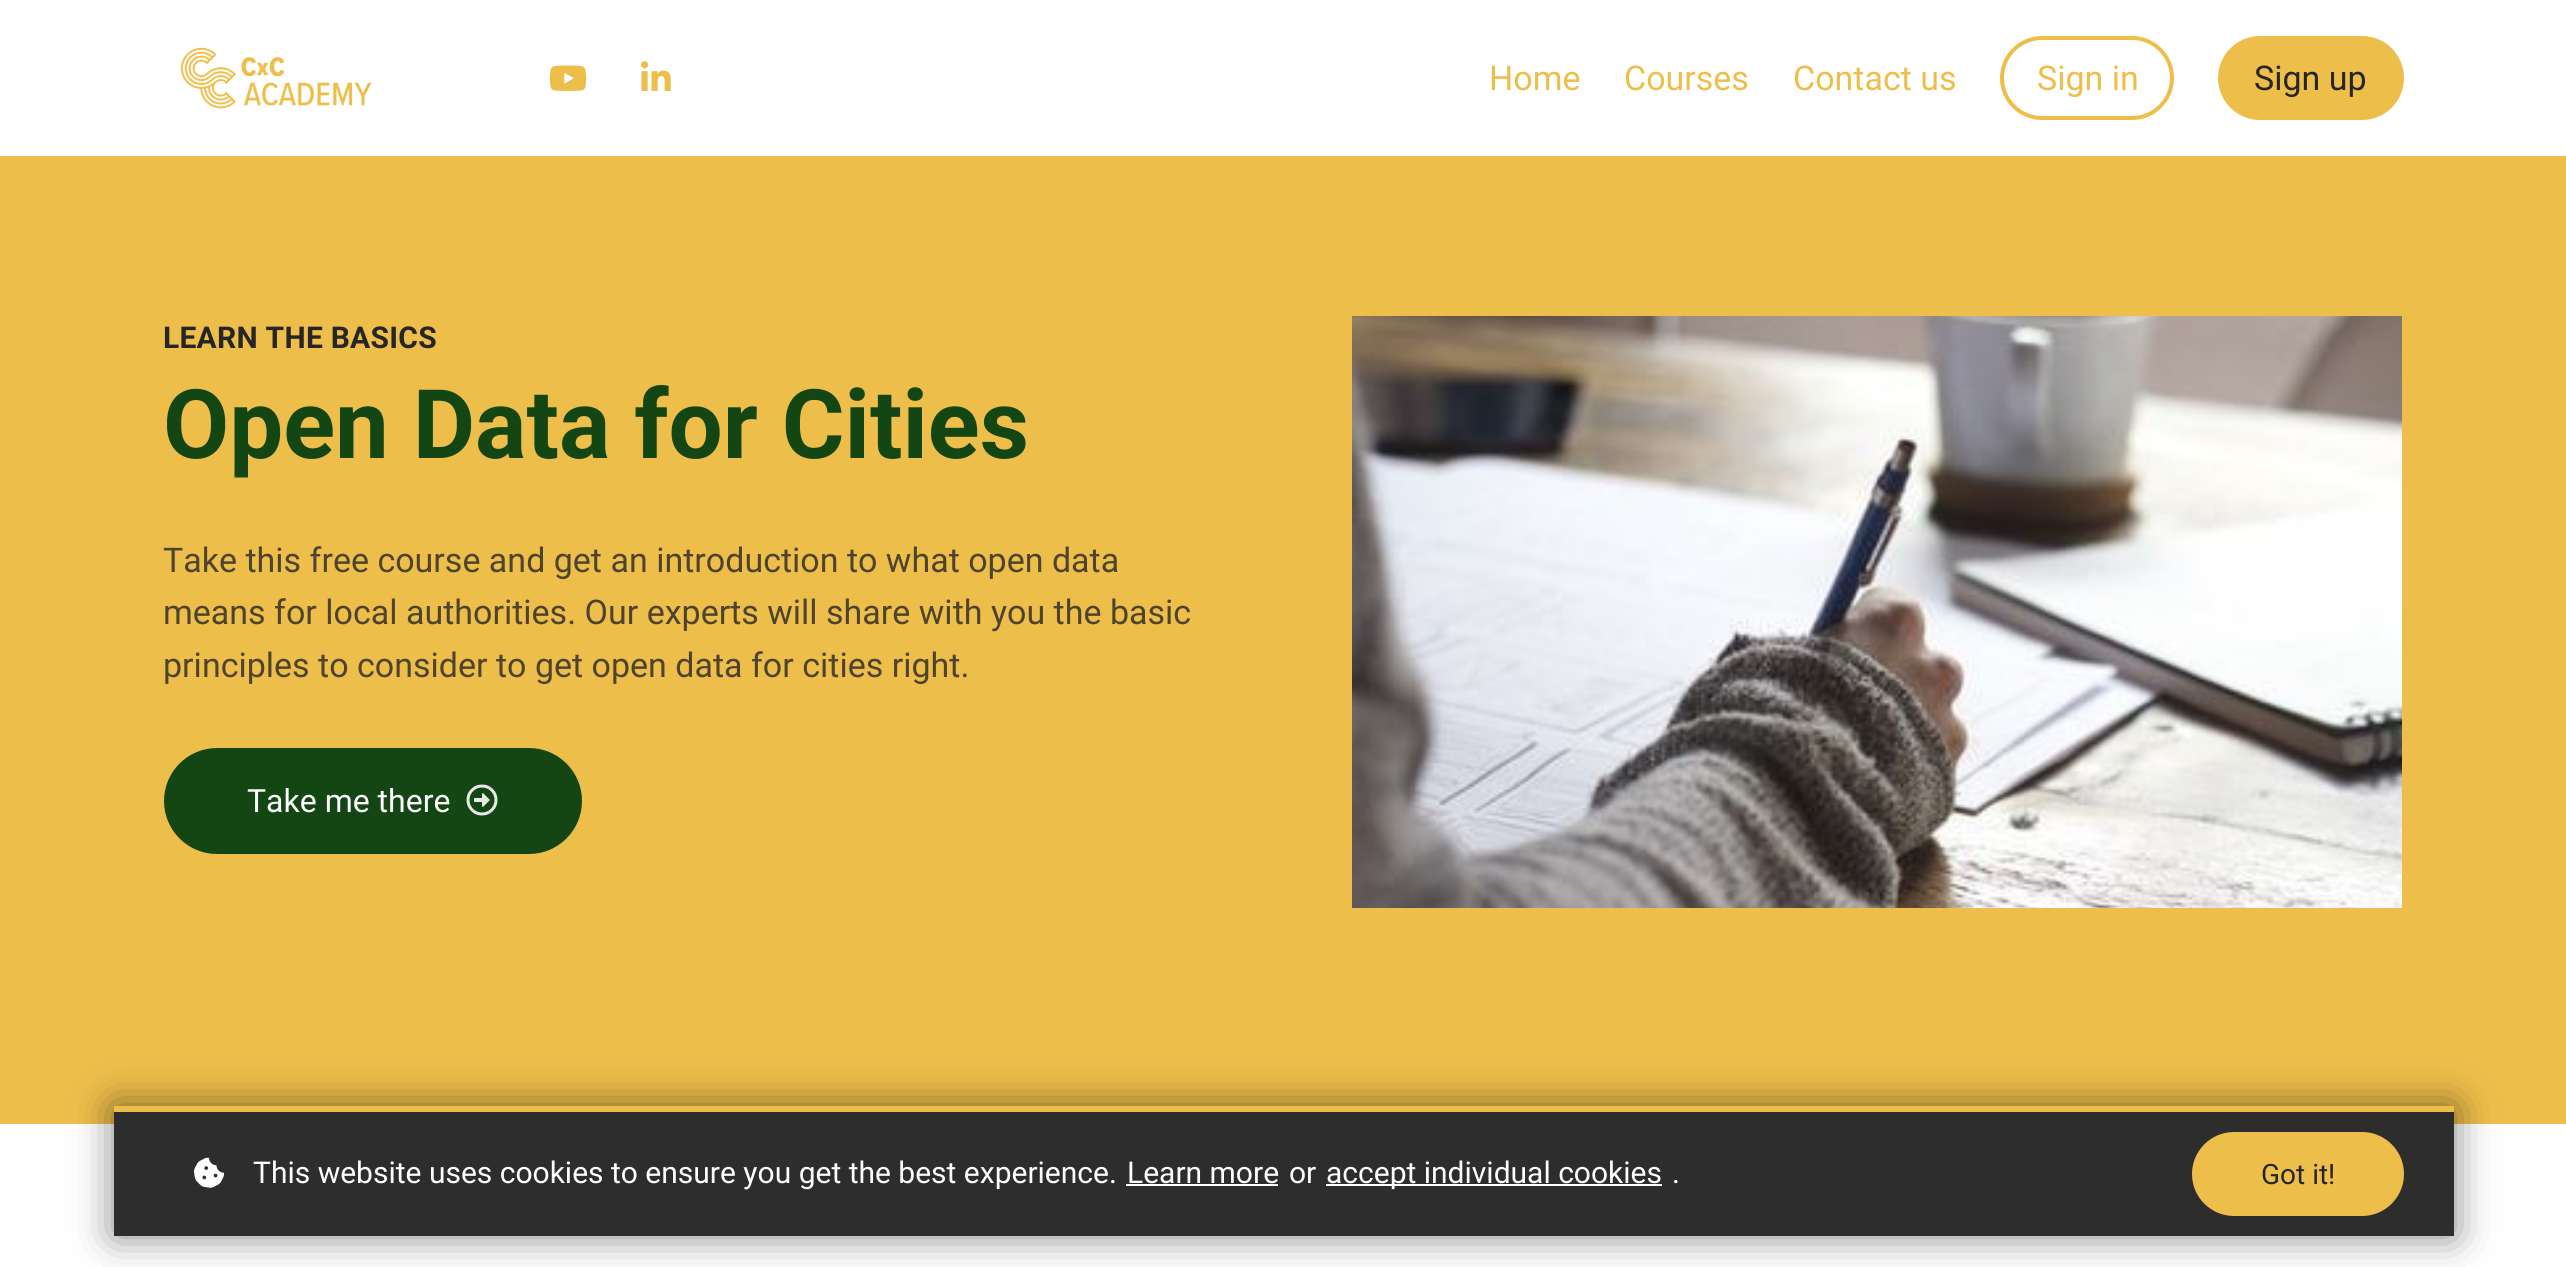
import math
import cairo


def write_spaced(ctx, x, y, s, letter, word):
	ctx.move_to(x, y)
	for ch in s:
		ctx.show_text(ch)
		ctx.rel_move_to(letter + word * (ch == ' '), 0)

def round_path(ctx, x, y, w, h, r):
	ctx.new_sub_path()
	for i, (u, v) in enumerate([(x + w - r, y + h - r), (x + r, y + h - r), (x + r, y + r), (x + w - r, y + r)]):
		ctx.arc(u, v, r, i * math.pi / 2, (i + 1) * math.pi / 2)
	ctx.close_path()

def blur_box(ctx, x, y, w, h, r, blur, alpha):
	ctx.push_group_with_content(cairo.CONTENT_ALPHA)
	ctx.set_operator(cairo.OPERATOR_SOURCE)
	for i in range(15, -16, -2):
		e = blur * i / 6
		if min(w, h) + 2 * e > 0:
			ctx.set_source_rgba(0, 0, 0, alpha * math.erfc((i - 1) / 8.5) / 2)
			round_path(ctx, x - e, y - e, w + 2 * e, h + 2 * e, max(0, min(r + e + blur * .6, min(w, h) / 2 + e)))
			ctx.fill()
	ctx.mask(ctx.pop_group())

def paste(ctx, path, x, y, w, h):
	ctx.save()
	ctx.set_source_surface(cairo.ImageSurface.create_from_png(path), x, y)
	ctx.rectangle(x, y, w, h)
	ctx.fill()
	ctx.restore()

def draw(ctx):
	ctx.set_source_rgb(1, 1, 1)
	ctx.paint()
	paste(ctx, 'media/1.png', 180, 47, 192, 62)
	paste(ctx, 'media/2.png', 549, 65, 38, 26)
	paste(ctx, 'media/3.png', 641, 61, 30, 30)
	ctx.select_font_face('Roboto')
	ctx.set_font_size(34)
	ctx.set_source_rgb(0.933, 0.745, 0.294)
	for x, y, s in [
		(1489, 90, 'Home'),
		(1624, 90, 'Courses'),
		(1793, 90, 'Contact us'),
	]:
		ctx.move_to(x, y)
		ctx.show_text(s)
	round_path(ctx, 2002, 38, 170, 80, 40)
	ctx.set_line_width(4)
	ctx.stroke()
	ctx.move_to(2037, 90)
	ctx.show_text('Sign in')
	round_path(ctx, 2218, 36, 186, 84, 42)
	ctx.fill()
	ctx.set_source_rgb(0.149, 0.149, 0.149)
	ctx.move_to(2254, 90)
	ctx.show_text('Sign up')
	ctx.set_source_rgb(0.933, 0.745, 0.294)
	ctx.rectangle(0, 156, 2566, 968)
	ctx.fill()
	ctx.select_font_face('Roboto', cairo.FONT_SLANT_NORMAL, cairo.FONT_WEIGHT_BOLD)
	ctx.set_font_size(30)
	ctx.set_source_rgb(0.149, 0.149, 0.149)
	write_spaced(ctx, 163, 348, 'LEARN THE BASICS', 0.25, 0)
	ctx.set_font_size(96)
	ctx.set_source_rgb(0.078, 0.275, 0.078)
	ctx.move_to(163, 458)
	ctx.show_text('Open Data for Cities')
	ctx.select_font_face('Roboto')
	ctx.set_font_size(34)
	ctx.set_source_rgb(0.306, 0.267, 0.176)
	for x, y, s in [
		(163, 572, 'Take this free course and get an introduction to what open data'),
		(163, 624, 'means for local authorities. Our experts will share with you the basic'),
		(163, 677, 'principles to consider to get open data for cities right.'),
	]:
		ctx.move_to(x, y)
		ctx.show_text(s)
	ctx.set_source_rgb(0.078, 0.275, 0.078)
	round_path(ctx, 164, 748, 418, 106, 53)
	ctx.fill()
	ctx.set_font_size(32)
	ctx.set_source_rgb(1, 1, 1)
	ctx.move_to(247, 812)
	ctx.show_text('Take me there')
	paste(ctx, 'media/4.png', 466, 784, 32, 32)
	paste(ctx, 'media/5.png', 1352, 316, 1050, 592)
	ctx.save()
	ctx.set_fill_rule(cairo.FILL_RULE_EVEN_ODD)
	ctx.new_path()
	ctx.move_to(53, 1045)
	ctx.line_to(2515, 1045)
	ctx.line_to(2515, 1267)
	ctx.line_to(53, 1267)
	ctx.close_path()
	ctx.move_to(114, 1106)
	ctx.line_to(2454, 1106)
	ctx.line_to(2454, 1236)
	ctx.line_to(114, 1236)
	ctx.close_path()
	ctx.clip()
	ctx.set_source_rgb(0, 0, 0)
	blur_box(ctx, 114, 1106, 2340, 130, 0, 20, 0.5)
	ctx.restore()
	ctx.set_source_rgb(0.176, 0.176, 0.176)
	ctx.rectangle(114, 1112, 2340, 124)
	ctx.fill()
	paste(ctx, 'media/6.png', 194, 1157, 30, 31)
	ctx.set_font_size(30)
	ctx.set_source_rgb(1, 1, 1)
	ctx.move_to(253, 1183)
	ctx.show_text('This website uses cookies to ensure you get the best experience.')
	ctx.move_to(1127, 1183)
	ctx.show_text('Learn more')
	ctx.rectangle(1126, 1184, 152, 2)
	ctx.fill()
	ctx.move_to(1289, 1183)
	ctx.show_text('or')
	ctx.rectangle(1326, 1184, 336, 2)
	ctx.fill()
	ctx.move_to(1326, 1183)
	ctx.show_text('accept individual cookies')
	ctx.move_to(1672, 1183)
	ctx.show_text('.')
	ctx.set_source_rgb(0.933, 0.745, 0.294)
	round_path(ctx, 2192, 1132, 212, 84, 42)
	ctx.fill()
	ctx.set_font_size(28)
	ctx.set_source_rgb(0.149, 0.149, 0.149)
	ctx.move_to(2261, 1184)
	ctx.show_text('Got it!')


surface = cairo.ImageSurface(cairo.FORMAT_RGB24, 2566, 1267)
ctx = cairo.Context(surface)
options = cairo.FontOptions()
options.set_hint_metrics(cairo.HINT_METRICS_OFF)
options.set_hint_style(cairo.HINT_STYLE_NONE)
ctx.set_font_options(options)
ctx.set_miter_limit(4)
draw(ctx)
surface.write_to_png('image.png')
